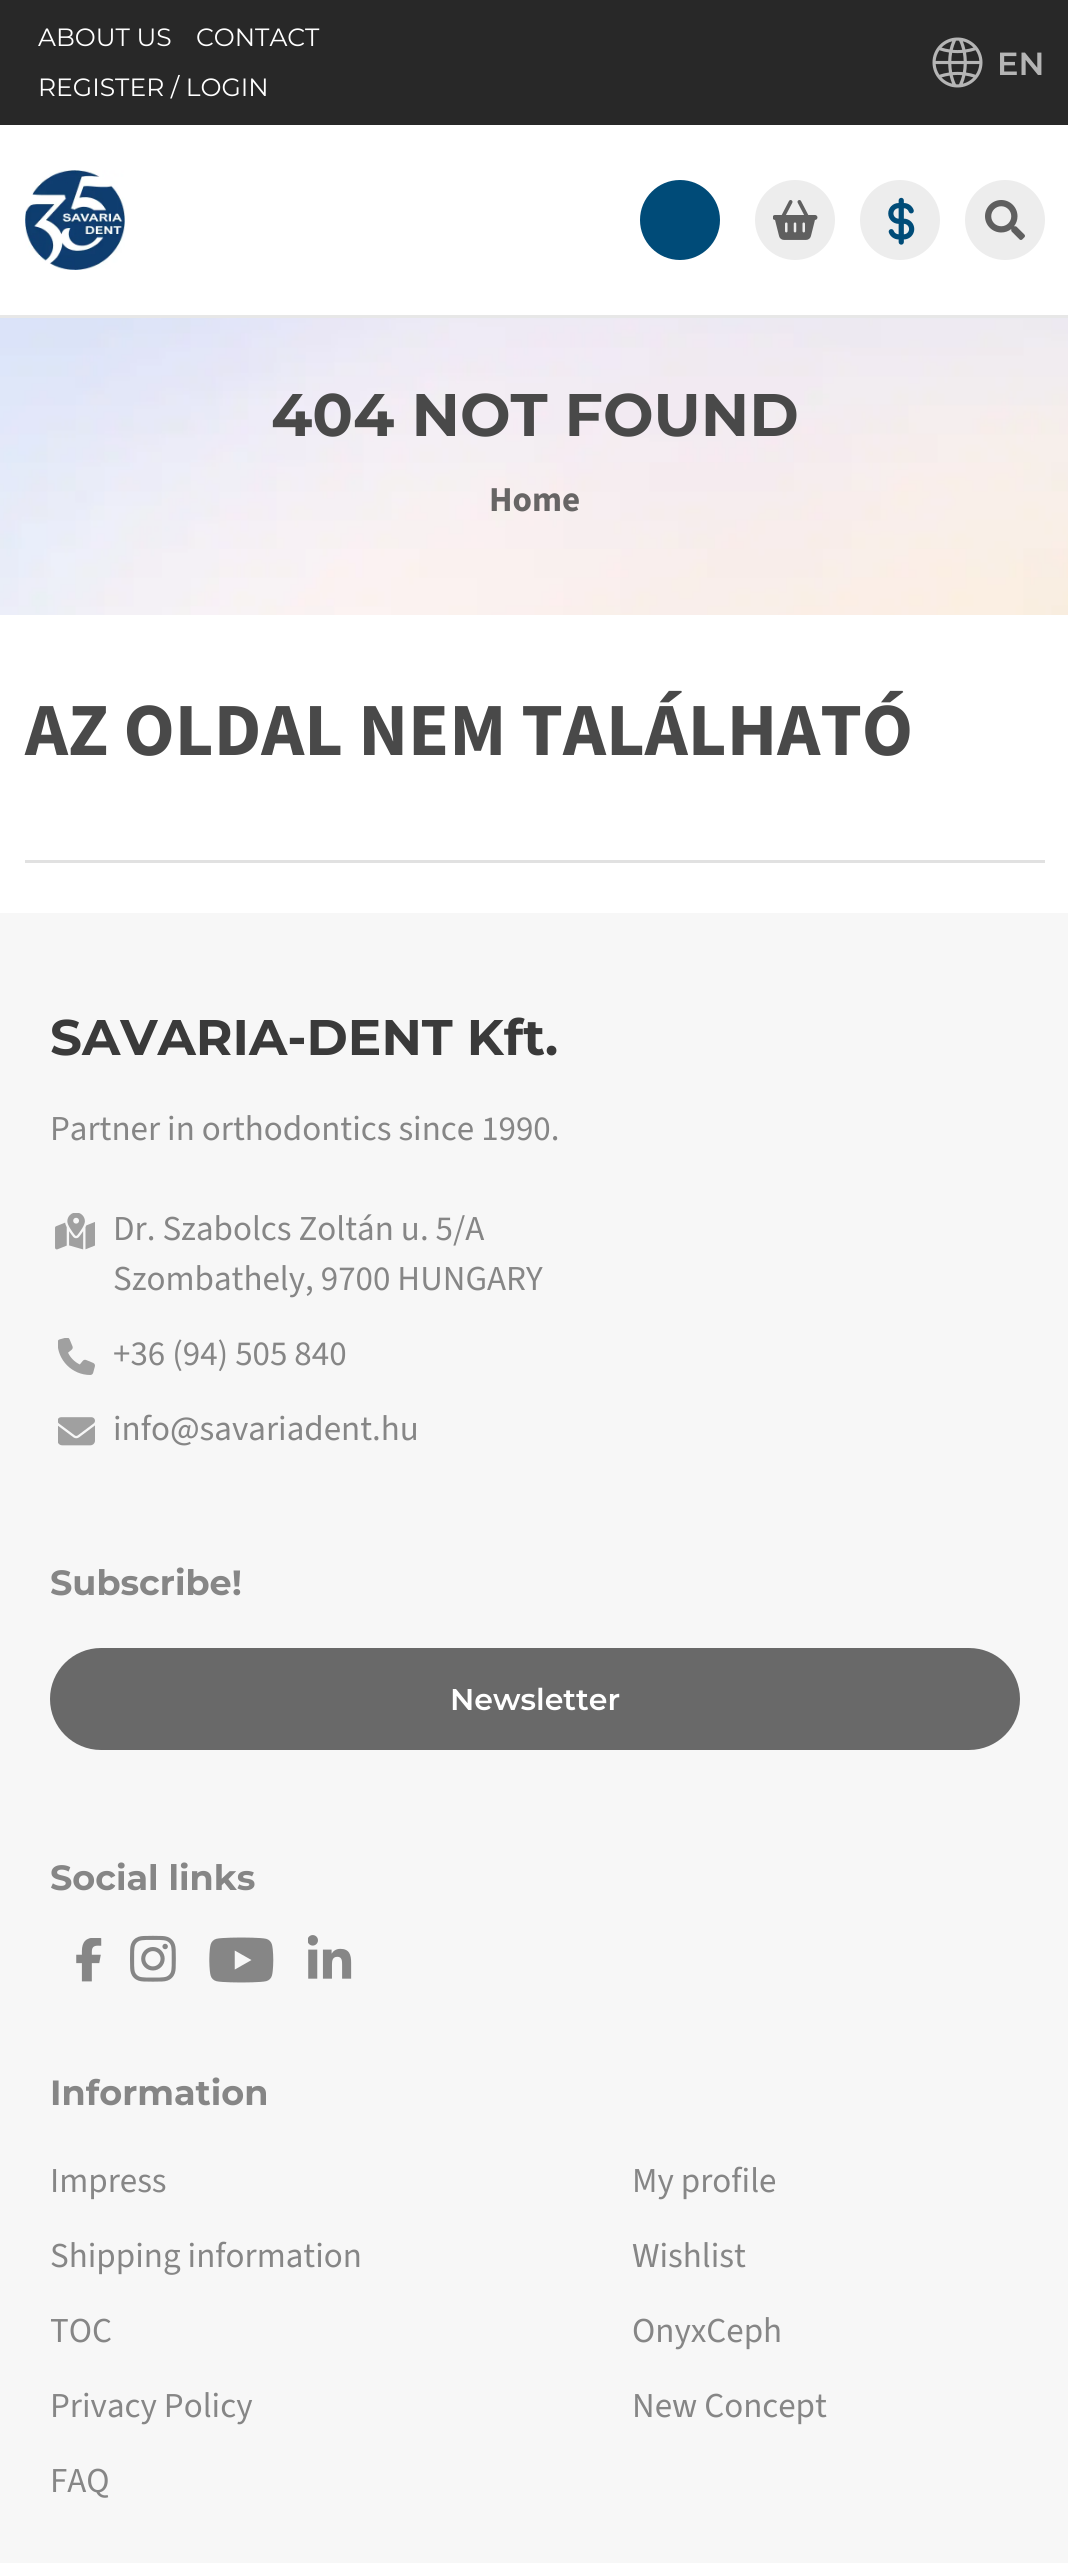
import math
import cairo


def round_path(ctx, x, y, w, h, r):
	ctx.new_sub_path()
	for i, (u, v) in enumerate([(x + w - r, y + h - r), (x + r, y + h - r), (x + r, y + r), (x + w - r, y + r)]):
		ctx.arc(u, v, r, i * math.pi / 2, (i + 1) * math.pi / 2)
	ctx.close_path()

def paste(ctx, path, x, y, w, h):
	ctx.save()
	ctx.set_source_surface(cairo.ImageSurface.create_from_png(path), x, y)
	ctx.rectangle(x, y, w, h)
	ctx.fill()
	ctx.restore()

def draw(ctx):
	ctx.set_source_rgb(1, 1, 1)
	ctx.paint()
	ctx.set_source_rgb(0.906, 0.906, 0.906)
	ctx.rectangle(0, 315, 1068, 3)
	ctx.fill()
	ctx.set_source_rgb(0.157, 0.157, 0.157)
	ctx.rectangle(0, 0, 1068, 125)
	ctx.fill()
	ctx.select_font_face('Montserrat')
	ctx.set_font_size(25)
	ctx.set_source_rgb(1, 1, 1)
	for x, y, s in [
		(38, 46, 'ABOUT US'),
		(196, 46, 'CONTACT'),
		(38, 96, 'REGISTER / LOGIN'),
	]:
		ctx.move_to(x, y)
		ctx.show_text(s)
	paste(ctx, 'media/1.png', 932, 37, 51, 51)
	ctx.select_font_face('Montserrat SemiBold')
	ctx.set_font_size(32)
	ctx.set_source_rgb(0.71, 0.71, 0.71)
	ctx.move_to(997, 75)
	ctx.show_text('EN')
	paste(ctx, 'media/2.png', 25, 170, 100, 100)
	ctx.set_source_rgb(0, 0.294, 0.471)
	ctx.arc(680, 220, 40, 0, 2 * math.pi)
	ctx.fill()
	ctx.set_source_rgb(0.929, 0.929, 0.929)
	ctx.arc(795, 220, 40, 0, 2 * math.pi)
	ctx.fill()
	paste(ctx, 'media/3.png', 773, 200, 45, 40)
	ctx.arc(900, 220, 40, 0, 2 * math.pi)
	ctx.fill()
	paste(ctx, 'media/4.png', 888, 197, 27, 48)
	ctx.arc(1005, 220, 40, 0, 2 * math.pi)
	ctx.fill()
	paste(ctx, 'media/5.png', 985, 200, 40, 40)
	paste(ctx, 'media/6.png', 0, 318, 1068, 297)
	ctx.select_font_face('Montserrat', cairo.FONT_SLANT_NORMAL, cairo.FONT_WEIGHT_BOLD)
	ctx.set_font_size(60)
	ctx.set_source_rgb(0.286, 0.286, 0.286)
	ctx.move_to(271, 436)
	ctx.show_text('404 NOT FOUND')
	ctx.select_font_face('Source Sans 3', cairo.FONT_SLANT_NORMAL, cairo.FONT_WEIGHT_BOLD)
	ctx.set_font_size(35)
	ctx.set_source_rgb(0.404, 0.396, 0.396)
	ctx.move_to(489, 511)
	ctx.show_text('Home')
	ctx.set_font_size(75)
	ctx.set_source_rgb(0.286, 0.286, 0.286)
	ctx.move_to(25, 755)
	ctx.show_text('AZ OLDAL NEM TALÁLHATÓ')
	ctx.set_source_rgb(0.882, 0.882, 0.882)
	ctx.rectangle(25, 860, 1020, 3)
	ctx.fill()
	ctx.set_source_rgb(0.965, 0.965, 0.965)
	ctx.rectangle(0, 913, 1068, 1650)
	ctx.fill()
	ctx.select_font_face('Montserrat', cairo.FONT_SLANT_NORMAL, cairo.FONT_WEIGHT_BOLD)
	ctx.set_font_size(50)
	ctx.set_source_rgb(0.227, 0.227, 0.227)
	ctx.move_to(50, 1055)
	ctx.show_text('SAVARIA-DENT Kft.')
	ctx.select_font_face('Source Sans 3')
	ctx.set_font_size(35)
	ctx.set_source_rgb(0.525, 0.525, 0.525)
	ctx.move_to(50, 1140)
	ctx.show_text('Partner in orthodontics since 1990.')
	paste(ctx, 'media/7.png', 55, 1213, 40, 37)
	ctx.move_to(113, 1240)
	ctx.show_text('Dr. Szabolcs Zoltán u. 5/A')
	ctx.move_to(113, 1290)
	ctx.show_text('Szombathely, 9700 HUNGARY')
	paste(ctx, 'media/8.png', 58, 1338, 37, 37)
	ctx.move_to(113, 1365)
	ctx.show_text('+36 (94) 505 840')
	paste(ctx, 'media/9.png', 58, 1417, 37, 29)
	ctx.move_to(113, 1440)
	ctx.show_text('info@savariadent.hu')
	ctx.select_font_face('Montserrat', cairo.FONT_SLANT_NORMAL, cairo.FONT_WEIGHT_BOLD)
	ctx.move_to(50, 1595)
	ctx.show_text('Subscribe!')
	ctx.set_source_rgb(0.412, 0.412, 0.412)
	round_path(ctx, 50, 1648, 970, 102, 51)
	ctx.fill()
	ctx.select_font_face('Montserrat SemiBold')
	ctx.set_font_size(30)
	ctx.set_source_rgb(1, 1, 1)
	ctx.move_to(450, 1710)
	ctx.show_text('Newsletter')
	ctx.select_font_face('Montserrat', cairo.FONT_SLANT_NORMAL, cairo.FONT_WEIGHT_BOLD)
	ctx.set_font_size(35)
	ctx.set_source_rgb(0.525, 0.525, 0.525)
	ctx.move_to(50, 1890)
	ctx.show_text('Social links')
	paste(ctx, 'media/10.png', 76, 1938, 26, 44)
	paste(ctx, 'media/11.png', 130, 1935, 46, 47)
	paste(ctx, 'media/12.png', 209, 1937, 65, 46)
	paste(ctx, 'media/13.png', 308, 1935, 44, 44)
	ctx.move_to(50, 2105)
	ctx.show_text('Information')
	ctx.select_font_face('Source Sans 3')
	for x, y, s in [
		(50, 2192, 'Impress'),
		(50, 2267, 'Shipping information'),
		(50, 2342, 'TOC'),
		(50, 2417, 'Privacy Policy'),
		(50, 2492, 'FAQ'),
		(632, 2192, 'My profile'),
		(632, 2267, 'Wishlist'),
		(632, 2342, 'OnyxCeph'),
		(632, 2417, 'New Concept'),
	]:
		ctx.move_to(x, y)
		ctx.show_text(s)


surface = cairo.ImageSurface(cairo.FORMAT_RGB24, 1068, 2563)
ctx = cairo.Context(surface)
options = cairo.FontOptions()
options.set_hint_metrics(cairo.HINT_METRICS_OFF)
options.set_hint_style(cairo.HINT_STYLE_NONE)
ctx.set_font_options(options)
ctx.set_miter_limit(4)
draw(ctx)
surface.write_to_png('image.png')
